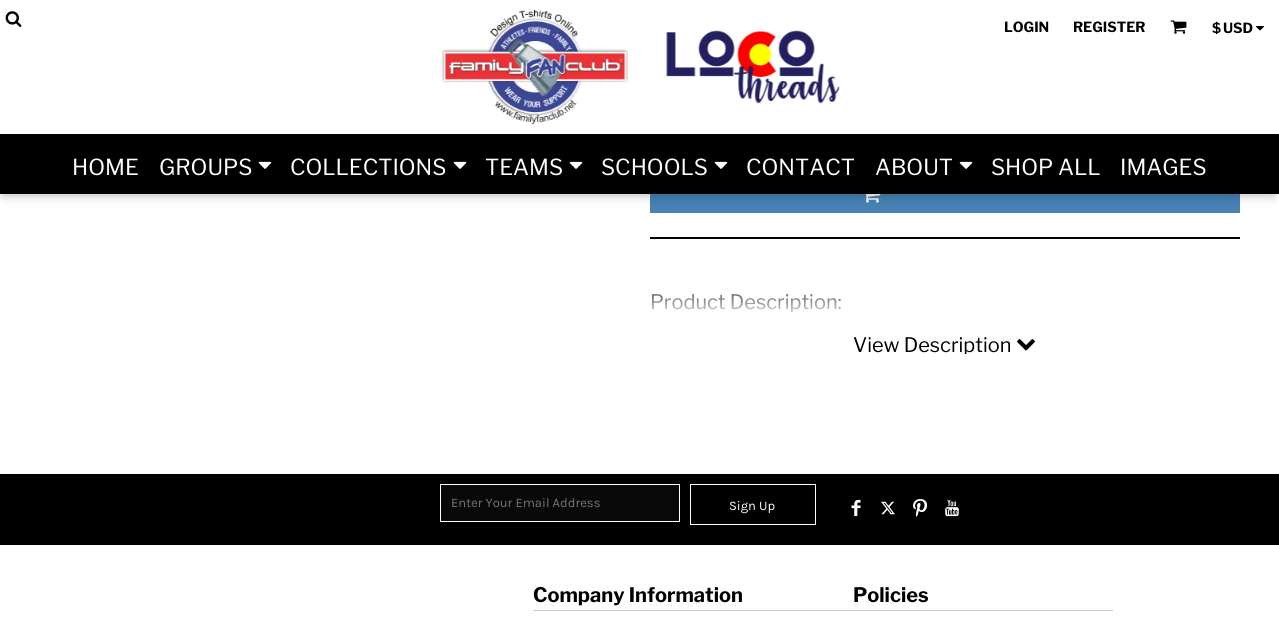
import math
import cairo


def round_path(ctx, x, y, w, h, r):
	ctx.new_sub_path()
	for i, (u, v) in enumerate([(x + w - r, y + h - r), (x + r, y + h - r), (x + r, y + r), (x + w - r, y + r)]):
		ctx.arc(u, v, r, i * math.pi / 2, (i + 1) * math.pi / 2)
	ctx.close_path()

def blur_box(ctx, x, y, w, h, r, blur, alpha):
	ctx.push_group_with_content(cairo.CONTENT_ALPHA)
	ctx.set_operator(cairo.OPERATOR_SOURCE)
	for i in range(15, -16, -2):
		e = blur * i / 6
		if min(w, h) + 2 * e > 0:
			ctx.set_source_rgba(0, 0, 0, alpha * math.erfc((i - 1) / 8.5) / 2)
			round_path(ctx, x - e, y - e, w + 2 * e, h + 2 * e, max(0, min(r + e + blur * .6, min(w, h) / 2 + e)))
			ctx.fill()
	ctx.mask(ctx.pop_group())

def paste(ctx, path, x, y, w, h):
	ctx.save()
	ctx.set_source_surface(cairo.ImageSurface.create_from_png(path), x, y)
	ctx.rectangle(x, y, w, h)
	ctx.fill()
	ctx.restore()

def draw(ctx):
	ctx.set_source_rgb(1, 1, 1)
	ctx.paint()
	ctx.set_source_rgb(0.275, 0.51, 0.706)
	ctx.rectangle(650, 194, 590, 19)
	ctx.fill()
	paste(ctx, 'media/6.png', 866, 194, 15, 9)
	ctx.set_source_rgb(0, 0, 0)
	blur_box(ctx, 3, 10, 1271, 186, 0, 5, 0.25)
	ctx.set_source_rgb(1, 1, 1)
	ctx.rectangle(0, 1, 1279, 133)
	ctx.fill()
	paste(ctx, 'media/1.png', 5, 11, 17, 16)
	paste(ctx, 'media/2.png', 441, 10, 399, 114)
	ctx.select_font_face('Libre Franklin', cairo.FONT_SLANT_NORMAL, cairo.FONT_WEIGHT_BOLD)
	ctx.set_font_size(14)
	ctx.set_source_rgb(0, 0, 0)
	ctx.move_to(1004, 32)
	ctx.show_text('LOGIN')
	ctx.move_to(1073, 32)
	ctx.show_text('REGISTER')
	paste(ctx, 'media/3.png', 1170, 20, 17, 14)
	ctx.move_to(1212, 33)
	ctx.show_text('$')
	ctx.move_to(1223, 33)
	ctx.show_text('USD')
	paste(ctx, 'media/4.png', 1256, 26, 8, 5)
	ctx.rectangle(0, 134, 1279, 60)
	ctx.fill()
	ctx.select_font_face('Libre Franklin')
	ctx.set_font_size(22)
	ctx.set_source_rgb(1, 1, 1)
	ctx.move_to(72, 175)
	ctx.show_text('HOME')
	ctx.move_to(159, 175)
	ctx.show_text('GROUPS')
	paste(ctx, 'media/5.png', 258, 161, 14, 8)
	ctx.move_to(290, 175)
	ctx.show_text('COLLECTIONS')
	paste(ctx, 'media/5.png', 453, 161, 14, 8)
	ctx.move_to(485, 175)
	ctx.show_text('TEAMS')
	paste(ctx, 'media/5.png', 569, 161, 14, 8)
	ctx.move_to(601, 175)
	ctx.show_text('SCHOOLS')
	paste(ctx, 'media/5.png', 714, 161, 14, 8)
	ctx.move_to(746, 175)
	ctx.show_text('CONTACT')
	ctx.move_to(875, 175)
	ctx.show_text('ABOUT')
	paste(ctx, 'media/5.png', 959, 161, 14, 8)
	ctx.move_to(991, 175)
	ctx.show_text('SHOP ALL')
	ctx.move_to(1120, 175)
	ctx.show_text('IMAGES')
	ctx.set_source_rgb(0, 0, 0)
	ctx.rectangle(650, 237, 590, 2)
	ctx.fill()
	ctx.set_font_size(20)
	ctx.move_to(650, 309)
	ctx.show_text('Product Description:')
	gradient = cairo.LinearGradient(945, 354, 945, 274)
	gradient.add_color_stop_rgba(0, 1, 1, 1, 1)
	gradient.add_color_stop_rgba(0.4, 1, 1, 1, 1)
	gradient.add_color_stop_rgba(1, 1, 1, 1, 0)
	ctx.set_source(gradient)
	ctx.rectangle(651, 294, 190, 19)
	ctx.fill()
	ctx.save()
	ctx.rectangle(650, 254, 590, 100)
	ctx.clip()
	ctx.set_source_rgb(0, 0, 0)
	ctx.move_to(853, 352)
	ctx.show_text('View Description')
	ctx.restore()
	paste(ctx, 'media/7.png', 1017, 339, 18, 12)
	ctx.set_source_rgb(0, 0, 0)
	ctx.rectangle(0, 474, 1279, 71)
	ctx.fill()
	ctx.set_source_rgb(0.039, 0.039, 0.039)
	ctx.rectangle(440.5, 484.5, 239, 37)
	ctx.fill_preserve()
	ctx.set_source_rgb(1, 1, 1)
	ctx.set_line_width(1)
	ctx.stroke()
	ctx.select_font_face('Karla')
	ctx.set_font_size(13)
	ctx.set_source_rgb(0.459, 0.459, 0.459)
	ctx.move_to(451, 507)
	ctx.show_text('Enter Your Email Address')
	ctx.rectangle(690.5, 484.5, 125, 40)
	ctx.set_source_rgb(1, 1, 1)
	ctx.stroke()
	ctx.move_to(729, 510)
	ctx.show_text('Sign Up')
	paste(ctx, 'media/8.png', 851, 499, 10, 18)
	paste(ctx, 'media/9.png', 881, 501, 14, 14)
	paste(ctx, 'media/10.png', 913, 499, 15, 18)
	ctx.select_font_face('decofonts')
	ctx.set_font_size(18)
	ctx.move_to(943, 517)
	ctx.show_text('1')
	ctx.set_source_rgb(0.8, 0.8, 0.8)
	ctx.rectangle(533, 610, 580, 1)
	ctx.fill()
	ctx.select_font_face('Libre Franklin', cairo.FONT_SLANT_NORMAL, cairo.FONT_WEIGHT_BOLD)
	ctx.set_font_size(20)
	ctx.set_source_rgb(0, 0, 0)
	ctx.move_to(533, 602)
	ctx.show_text('Company Information')
	ctx.move_to(853, 602)
	ctx.show_text('Policies')


surface = cairo.ImageSurface(cairo.FORMAT_RGB24, 1279, 633)
ctx = cairo.Context(surface)
options = cairo.FontOptions()
options.set_hint_metrics(cairo.HINT_METRICS_OFF)
options.set_hint_style(cairo.HINT_STYLE_NONE)
ctx.set_font_options(options)
ctx.set_miter_limit(4)
draw(ctx)
surface.write_to_png('image.png')
